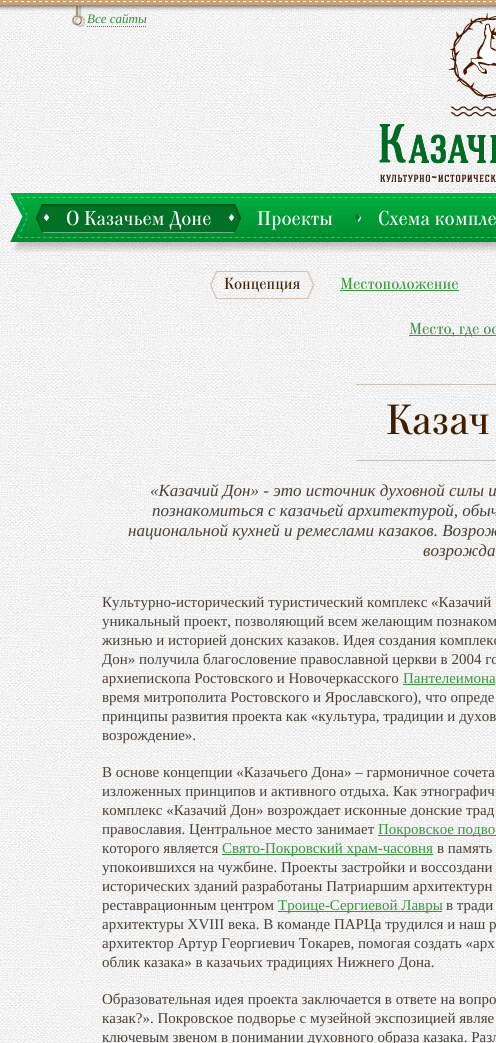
import math
import cairo


def paste(ctx, path, x, y, w, h):
	ctx.save()
	ctx.set_source_surface(cairo.ImageSurface.create_from_png(path), x, y)
	ctx.rectangle(x, y, w, h)
	ctx.fill()
	ctx.restore()

def draw(ctx):
	ctx.set_source_rgb(1, 1, 1)
	ctx.paint()
	paste(ctx, 'media/3.png', 0, 5, 496, 1038)
	paste(ctx, 'media/1.png', 0, 0, 496, 11)
	paste(ctx, 'media/2.png', 72, 6, 13, 21)
	ctx.select_font_face('Liberation Serif', cairo.FONT_SLANT_ITALIC)
	ctx.set_font_size(13)
	ctx.set_source_rgb(0.212, 0.553, 0.231)
	ctx.move_to(87, 23)
	ctx.show_text('Все сайты')
	ctx.new_path()
	ctx.move_to(87, 26.5)
	ctx.line_to(147, 26.5)
	ctx.set_line_width(1)
	ctx.set_dash([1, 1])
	ctx.stroke()
	paste(ctx, 'media/4.png', 379, 12, 117, 171)
	paste(ctx, 'media/5.png', 36, 193, 460, 59)
	paste(ctx, 'media/6.png', 10, 193, 26, 59)
	paste(ctx, 'media/7.png', 36, 204, 20, 29)
	paste(ctx, 'media/8.png', 56, 204, 165, 29)
	ctx.select_font_face('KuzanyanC')
	ctx.set_font_size(20)
	ctx.set_source_rgb(0.996, 0.996, 0.996)
	ctx.move_to(66, 225)
	ctx.show_text('О Казачьем Доне')
	paste(ctx, 'media/9.png', 221, 204, 20, 29)
	ctx.move_to(257, 225)
	ctx.show_text('Проекты')
	paste(ctx, 'media/10.png', 355, 213, 6, 9)
	ctx.move_to(378, 225)
	ctx.show_text('Схема компле')
	paste(ctx, 'media/11.png', 210, 271, 7, 28)
	ctx.set_font_size(16)
	ctx.set_source_rgb(0.247, 0.122, 0)
	ctx.move_to(224, 289)
	ctx.show_text('Концепция')
	paste(ctx, 'media/12.png', 217, 271, 97, 28)
	ctx.set_source_rgb(0.227, 0.588, 0.247)
	ctx.move_to(340, 289)
	ctx.show_text('Местоположение')
	ctx.rectangle(340, 290, 119, 1)
	ctx.fill()
	ctx.rectangle(409, 335, 87, 1)
	ctx.fill()
	ctx.move_to(409, 334)
	ctx.show_text('Место, где ос')
	ctx.set_source_rgb(0.804, 0.753, 0.706)
	ctx.rectangle(356, 384, 140, 1)
	ctx.fill()
	ctx.set_font_size(42)
	ctx.set_source_rgb(0.247, 0.122, 0)
	ctx.move_to(386, 434)
	ctx.show_text('Казач')
	ctx.set_source_rgb(0.804, 0.753, 0.706)
	ctx.rectangle(356, 460, 140, 1)
	ctx.fill()
	ctx.select_font_face('Liberation Serif', cairo.FONT_SLANT_ITALIC)
	ctx.set_font_size(17)
	ctx.set_source_rgb(0.298, 0.247, 0.196)
	for x, y, s in [
		(150, 496, '«Казачий Дон» - это источник духовной силы и'),
		(152, 516, 'познакомиться с казачьей архитектурой, обыч'),
		(128, 536, 'национальной кухней и ремеслами казаков. Возрож'),
		(423, 556, 'возрожда'),
	]:
		ctx.move_to(x, y)
		ctx.show_text(s)
	ctx.select_font_face('Liberation Serif')
	ctx.set_font_size(15)
	for x, y, s in [
		(102, 607, 'Культурно-исторический туристический комплекс «Казачий'),
		(102, 626, 'уникальный проект, позволяющий всем желающим познаком'),
		(102, 645, 'жизнью и историей донских казаков. Идея создания комплекс'),
		(102, 664, 'Дон» получила благословение православной церкви в 2004 го'),
		(102, 683, 'архиепископа Ростовского и Новочеркасского'),
	]:
		ctx.move_to(x, y)
		ctx.show_text(s)
	ctx.set_source_rgb(0.227, 0.588, 0.247)
	ctx.move_to(403, 683)
	ctx.show_text('Пантелеимона')
	ctx.rectangle(403, 684, 92, 1)
	ctx.fill()
	ctx.set_source_rgb(0.298, 0.247, 0.196)
	for x, y, s in [
		(102, 702, 'время митрополита Ростовского и Ярославского), что опреде'),
		(102, 721, 'принципы развития проекта как «культура, традиции и духов'),
		(102, 740, 'возрождение».'),
		(102, 777, 'В основе концепции «Казачьего Дона» – гармоничное сочета'),
		(102, 796, 'изложенных принципов и активного отдыха. Как этнографич'),
		(102, 815, 'комплекс «Казачий Дон» возрождает исконные донские трад'),
		(102, 834, 'православия. Центральное место занимает'),
	]:
		ctx.move_to(x, y)
		ctx.show_text(s)
	ctx.set_source_rgb(0.227, 0.588, 0.247)
	ctx.rectangle(378, 835, 118, 1)
	ctx.fill()
	ctx.move_to(378, 834)
	ctx.show_text('Покровское подво')
	ctx.set_source_rgb(0.298, 0.247, 0.196)
	ctx.move_to(102, 853)
	ctx.show_text('которого является')
	ctx.set_source_rgb(0.227, 0.588, 0.247)
	ctx.rectangle(222, 854, 211, 1)
	ctx.fill()
	ctx.move_to(222, 853)
	ctx.show_text('Свято-Покровский храм-часовня')
	ctx.set_source_rgb(0.298, 0.247, 0.196)
	for x, y, s in [
		(437, 853, 'в память'),
		(102, 872, 'упокоившихся на чужбине. Проекты застройки и воссоздани'),
		(102, 891, 'исторических зданий разработаны Патриаршим архитектурн'),
		(102, 910, 'реставрационным центром'),
	]:
		ctx.move_to(x, y)
		ctx.show_text(s)
	ctx.set_source_rgb(0.227, 0.588, 0.247)
	ctx.rectangle(278, 911, 164, 1)
	ctx.fill()
	ctx.move_to(278, 910)
	ctx.show_text('Троице-Сергиевой Лавры')
	ctx.set_source_rgb(0.298, 0.247, 0.196)
	for x, y, s in [
		(446, 910, 'в тради'),
		(102, 929, 'архитектуры XVIII века. В команде ПАРЦа трудился и наш р'),
		(102, 948, 'архитектор Артур Георгиевич Токарев, помогая создать «арх'),
		(102, 967, 'облик казака» в казачьих традициях Нижнего Дона.'),
		(102, 1004, 'Образовательная идея проекта заключается в ответе на вопро'),
		(102, 1023, 'казак?». Покровское подворье с музейной экспозицией являе'),
		(102, 1042, 'ключевым звеном в понимании духовного образа казака. Разл'),
	]:
		ctx.move_to(x, y)
		ctx.show_text(s)


surface = cairo.ImageSurface(cairo.FORMAT_RGB24, 496, 1043)
ctx = cairo.Context(surface)
options = cairo.FontOptions()
options.set_hint_metrics(cairo.HINT_METRICS_OFF)
options.set_hint_style(cairo.HINT_STYLE_NONE)
ctx.set_font_options(options)
ctx.set_miter_limit(4)
draw(ctx)
surface.write_to_png('image.png')
